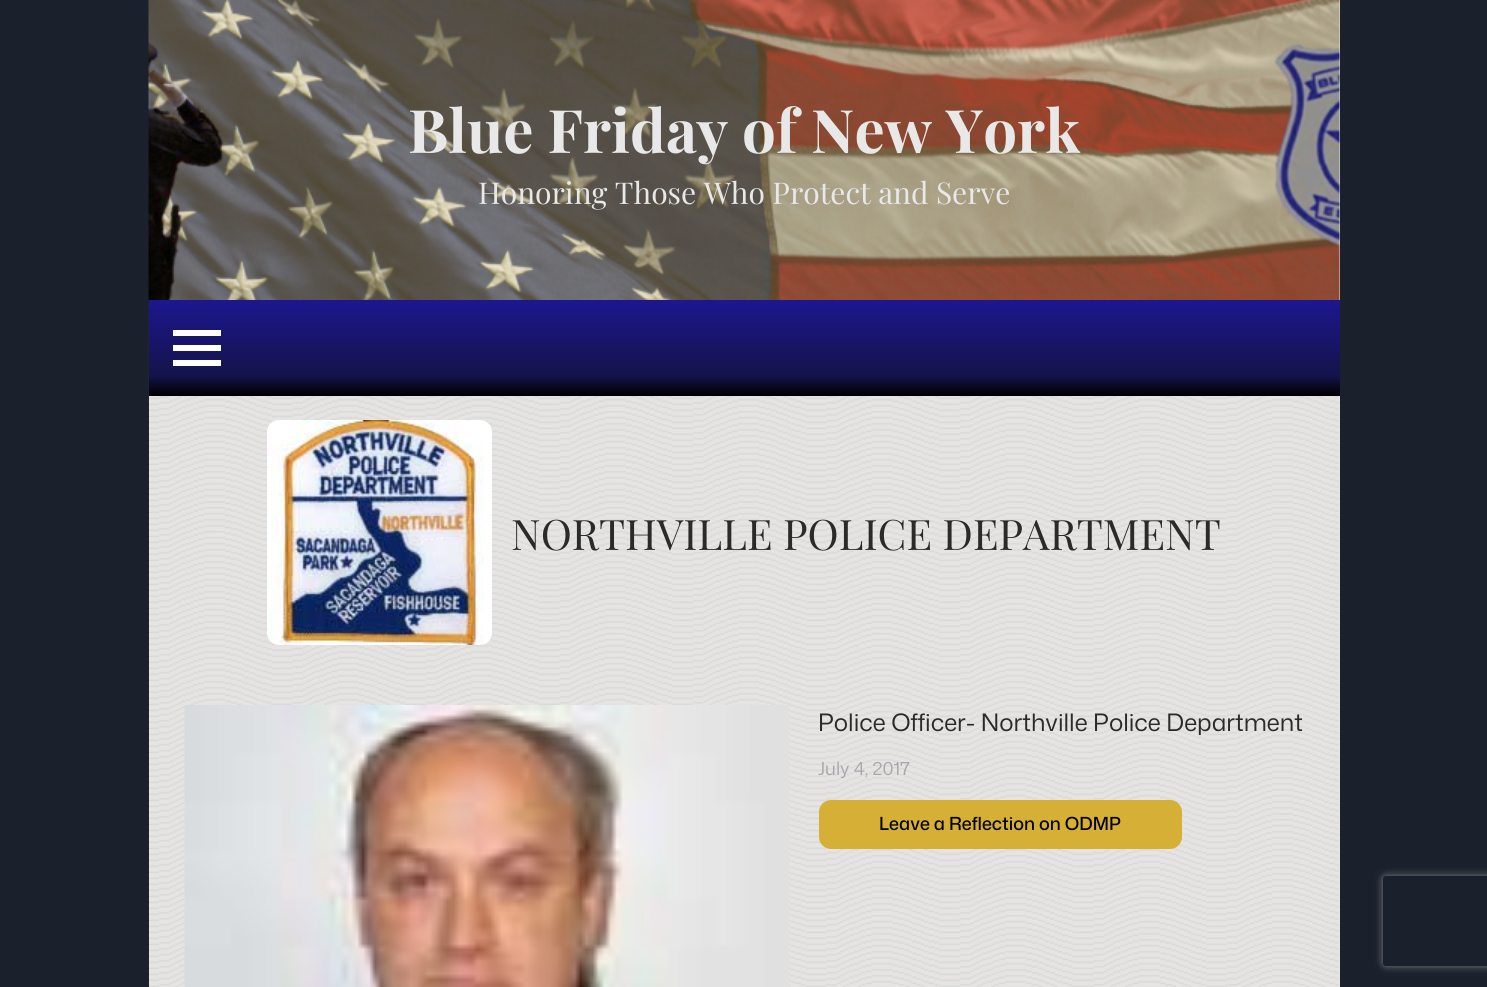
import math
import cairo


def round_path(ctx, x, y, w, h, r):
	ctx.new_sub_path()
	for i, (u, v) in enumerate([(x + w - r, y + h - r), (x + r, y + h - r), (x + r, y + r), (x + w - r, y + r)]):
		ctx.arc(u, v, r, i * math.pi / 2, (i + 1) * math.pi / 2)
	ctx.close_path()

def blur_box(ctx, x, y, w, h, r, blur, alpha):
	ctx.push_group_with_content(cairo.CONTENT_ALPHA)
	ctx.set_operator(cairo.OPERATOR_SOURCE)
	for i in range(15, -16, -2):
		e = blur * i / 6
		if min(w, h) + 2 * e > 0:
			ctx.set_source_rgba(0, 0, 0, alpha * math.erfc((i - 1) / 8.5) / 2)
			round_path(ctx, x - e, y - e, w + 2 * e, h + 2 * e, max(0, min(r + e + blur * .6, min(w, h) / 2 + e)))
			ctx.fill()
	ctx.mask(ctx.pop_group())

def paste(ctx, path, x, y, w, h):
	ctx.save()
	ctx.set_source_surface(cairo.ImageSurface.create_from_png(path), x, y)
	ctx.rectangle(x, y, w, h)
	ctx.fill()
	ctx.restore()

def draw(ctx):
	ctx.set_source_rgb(0.102, 0.125, 0.173)
	ctx.paint()
	ctx.set_source_rgb(0.898, 0.894, 0.886)
	ctx.rectangle(1339, 0, 1, 300)
	ctx.fill()
	paste(ctx, 'media/1.png', 148, 0, 1, 396)
	paste(ctx, 'media/2.png', 148, 0, 1192, 300)
	ctx.select_font_face('Playfair Display', cairo.FONT_SLANT_NORMAL, cairo.FONT_WEIGHT_BOLD)
	ctx.set_font_size(60)
	ctx.set_source_rgb(0.91, 0.91, 0.91)
	ctx.move_to(408, 153)
	ctx.show_text('Blue Friday of New York')
	ctx.select_font_face('Playfair Display')
	ctx.set_font_size(30)
	ctx.move_to(478, 204)
	ctx.show_text('Honoring Those Who Protect and Serve')
	gradient = cairo.LinearGradient(744, 396, 744, 300)
	gradient.add_color_stop_rgba(0, 0, 0, 0, 1)
	gradient.add_color_stop_rgba(0.22, 0.082, 0.075, 0.298, 1)
	gradient.add_color_stop_rgba(1, 0.11, 0.09, 0.561, 1)
	ctx.set_source(gradient)
	ctx.rectangle(149, 300, 1191, 96)
	ctx.fill()
	ctx.set_source_rgb(1, 1, 1)
	ctx.rectangle(173, 345, 48, 6)
	ctx.rectangle(173, 330, 48, 6)
	ctx.rectangle(173, 360, 48, 6)
	ctx.fill()
	ctx.set_source_rgb(0.898, 0.894, 0.886)
	ctx.rectangle(149, 396, 1191, 591)
	ctx.fill()
	paste(ctx, 'media/3.png', 148, 396, 1191, 591)
	paste(ctx, 'media/4.png', 267, 420, 225, 225)
	ctx.set_font_size(42)
	ctx.set_source_rgb(0.165, 0.165, 0.165)
	ctx.move_to(511, 550)
	ctx.show_text('NORTHVILLE POLICE DEPARTMENT')
	paste(ctx, 'media/5.png', 184, 705, 605, 282)
	ctx.select_font_face('Mona Sans')
	ctx.set_font_size(24)
	ctx.move_to(818, 731)
	ctx.show_text('Police Officer- Northville Police Department')
	ctx.set_font_size(18)
	ctx.set_source_rgb(0.655, 0.655, 0.678)
	ctx.move_to(818, 775)
	ctx.show_text('July 4, 2017')
	ctx.set_source_rgb(0.839, 0.686, 0.212)
	round_path(ctx, 819, 800, 363, 49, 12)
	ctx.fill()
	ctx.select_font_face('Mona Sans Medium')
	ctx.set_source_rgb(0, 0, 0)
	ctx.move_to(879, 830)
	ctx.show_text('Leave a Reflection on ODMP')
	ctx.save()
	ctx.set_fill_rule(cairo.FILL_RULE_EVEN_ODD)
	ctx.new_path()
	ctx.move_to(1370, 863)
	ctx.line_to(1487, 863)
	ctx.line_to(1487, 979)
	ctx.line_to(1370, 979)
	ctx.close_path()
	ctx.move_to(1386, 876)
	ctx.line_to(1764, 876)
	ctx.curve_to(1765.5, 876, 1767, 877.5, 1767, 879)
	ctx.line_to(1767, 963)
	ctx.curve_to(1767, 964.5, 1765.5, 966, 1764, 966)
	ctx.line_to(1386, 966)
	ctx.curve_to(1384.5, 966, 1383, 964.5, 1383, 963)
	ctx.line_to(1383, 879)
	ctx.curve_to(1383, 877.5, 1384.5, 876, 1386, 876)
	ctx.close_path()
	ctx.clip()
	ctx.set_source_rgb(0.502, 0.502, 0.502)
	blur_box(ctx, 1383, 876, 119, 90, 3, 4, 1)
	ctx.restore()


surface = cairo.ImageSurface(cairo.FORMAT_RGB24, 1487, 987)
ctx = cairo.Context(surface)
options = cairo.FontOptions()
options.set_hint_metrics(cairo.HINT_METRICS_OFF)
options.set_hint_style(cairo.HINT_STYLE_NONE)
ctx.set_font_options(options)
ctx.set_miter_limit(4)
draw(ctx)
surface.write_to_png('image.png')
